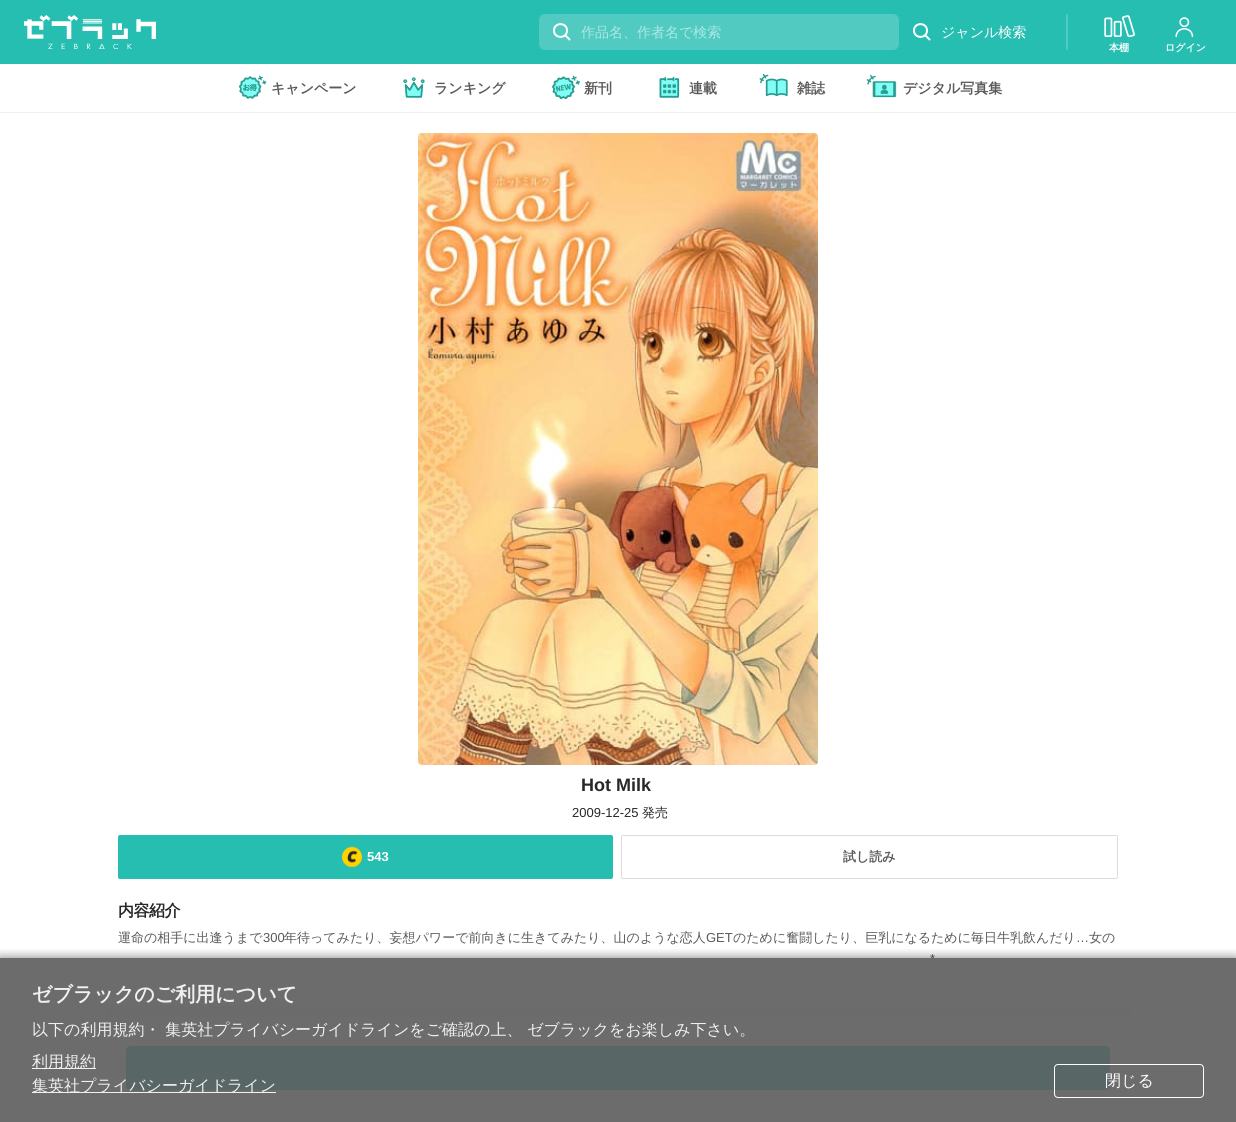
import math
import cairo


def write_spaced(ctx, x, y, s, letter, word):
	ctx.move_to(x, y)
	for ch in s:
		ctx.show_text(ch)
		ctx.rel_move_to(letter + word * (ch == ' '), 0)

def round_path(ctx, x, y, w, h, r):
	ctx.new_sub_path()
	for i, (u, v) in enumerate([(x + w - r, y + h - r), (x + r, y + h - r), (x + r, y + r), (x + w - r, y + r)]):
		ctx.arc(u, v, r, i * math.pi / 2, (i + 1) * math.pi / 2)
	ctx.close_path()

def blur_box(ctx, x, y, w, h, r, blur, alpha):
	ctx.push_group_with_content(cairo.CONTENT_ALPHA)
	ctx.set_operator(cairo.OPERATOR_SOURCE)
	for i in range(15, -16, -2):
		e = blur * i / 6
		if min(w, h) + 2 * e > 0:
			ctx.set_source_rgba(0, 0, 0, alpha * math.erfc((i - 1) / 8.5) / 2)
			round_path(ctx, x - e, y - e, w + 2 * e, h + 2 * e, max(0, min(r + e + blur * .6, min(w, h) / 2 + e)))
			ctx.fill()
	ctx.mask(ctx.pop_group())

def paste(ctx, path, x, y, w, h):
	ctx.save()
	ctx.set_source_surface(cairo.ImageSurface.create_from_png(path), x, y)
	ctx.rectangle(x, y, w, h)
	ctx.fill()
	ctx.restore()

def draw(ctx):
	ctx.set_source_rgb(1, 1, 1)
	ctx.paint()
	ctx.set_source_rgb(0.145, 0.745, 0.694)
	ctx.rectangle(0, 0, 1236, 64)
	ctx.fill()
	paste(ctx, 'media/1.png', 24, 15, 132, 34)
	ctx.set_source_rgb(0.318, 0.796, 0.757)
	round_path(ctx, 539, 14, 360, 36, 6)
	ctx.fill()
	ctx.new_path()
	ctx.move_to(569.5, 39.5)
	ctx.line_to(565, 35)
	ctx.move_to(554, 30.5)
	ctx.curve_to(554, 39, 567, 39, 567, 30.5)
	ctx.curve_to(567, 22, 554, 22, 554, 30.5)
	ctx.close_path()
	ctx.set_source_rgb(1, 1, 1)
	ctx.set_line_cap(cairo.LINE_CAP_ROUND)
	ctx.set_line_join(cairo.LINE_JOIN_ROUND)
	ctx.stroke()
	ctx.select_font_face('WenQuanYi Zen Hei Medium')
	ctx.set_font_size(14)
	ctx.set_source_rgb(0.678, 0.91, 0.89)
	ctx.move_to(581, 37)
	ctx.show_text('作品名、作者名で検索')
	ctx.new_path()
	ctx.move_to(929.5, 39.5)
	ctx.line_to(925, 35)
	ctx.move_to(914, 30.5)
	ctx.curve_to(914, 39, 927, 39, 927, 30.5)
	ctx.curve_to(927, 22, 914, 22, 914, 30.5)
	ctx.close_path()
	ctx.set_source_rgb(1, 1, 1)
	ctx.stroke()
	ctx.move_to(941, 37)
	ctx.show_text('ジャンル検索')
	ctx.set_source_rgb(0.318, 0.796, 0.757)
	ctx.rectangle(1066, 14, 2, 36)
	ctx.fill()
	paste(ctx, 'media/2.png', 1104, 15, 31, 23)
	ctx.select_font_face('WenQuanYi Zen Hei', cairo.FONT_SLANT_NORMAL, cairo.FONT_WEIGHT_BOLD)
	ctx.set_font_size(10)
	ctx.set_source_rgb(1, 1, 1)
	ctx.move_to(1109, 51)
	ctx.show_text('本棚')
	paste(ctx, 'media/3.png', 1175, 17, 19, 20)
	ctx.move_to(1165, 51)
	ctx.show_text('ログイン')
	ctx.set_source_rgb(0.941, 0.941, 0.941)
	ctx.rectangle(0, 112, 1236, 1)
	ctx.fill()
	paste(ctx, 'media/4.png', 238, 75, 29, 24)
	ctx.set_font_size(14)
	ctx.set_source_rgb(0.353, 0.353, 0.353)
	ctx.move_to(271, 93)
	ctx.show_text('キャンペーン')
	paste(ctx, 'media/5.png', 403, 77, 22, 21)
	ctx.move_to(434, 93)
	ctx.show_text('ランキング')
	paste(ctx, 'media/6.png', 551, 75, 29, 25)
	ctx.move_to(584, 93)
	ctx.show_text('新刊')
	paste(ctx, 'media/7.png', 659, 76, 21, 22)
	ctx.move_to(689, 93)
	ctx.show_text('連載')
	paste(ctx, 'media/8.png', 759, 73, 29, 24)
	ctx.move_to(797, 93)
	ctx.show_text('雑誌')
	paste(ctx, 'media/9.png', 866, 74, 31, 24)
	ctx.move_to(903, 93)
	ctx.show_text('デジタル写真集')
	ctx.set_source_rgb(0.941, 0.941, 0.941)
	ctx.rectangle(106, 1006, 1024, 11)
	ctx.fill()
	paste(ctx, 'media/10.png', 418, 133, 400, 632)
	ctx.select_font_face('Liberation Sans', cairo.FONT_SLANT_NORMAL, cairo.FONT_WEIGHT_BOLD)
	ctx.set_font_size(18)
	ctx.set_source_rgb(0.157, 0.157, 0.157)
	ctx.move_to(581, 791)
	ctx.show_text('Hot Milk')
	ctx.select_font_face('Liberation Sans')
	ctx.set_font_size(13)
	ctx.move_to(572, 817)
	ctx.show_text('2009-12-25')
	ctx.select_font_face('WenQuanYi Zen Hei Medium')
	ctx.move_to(642, 817)
	ctx.show_text('発売')
	ctx.set_source_rgb(0.145, 0.745, 0.694)
	round_path(ctx, 118, 835, 495, 44, 2)
	ctx.fill()
	paste(ctx, 'media/11.png', 342, 846, 20, 21)
	ctx.select_font_face('Liberation Sans', cairo.FONT_SLANT_NORMAL, cairo.FONT_WEIGHT_BOLD)
	ctx.set_source_rgb(1, 1, 1)
	ctx.move_to(367, 861)
	ctx.show_text('543')
	round_path(ctx, 621.5, 835.5, 496, 43, 1.5)
	ctx.set_source_rgb(0.863, 0.863, 0.863)
	ctx.set_line_width(1)
	ctx.set_line_cap(cairo.LINE_CAP_BUTT)
	ctx.set_line_join(cairo.LINE_JOIN_MITER)
	ctx.stroke()
	ctx.select_font_face('WenQuanYi Zen Hei', cairo.FONT_SLANT_NORMAL, cairo.FONT_WEIGHT_BOLD)
	ctx.set_source_rgb(0.353, 0.353, 0.353)
	ctx.move_to(843, 861)
	ctx.show_text('試し読み')
	ctx.set_font_size(16)
	ctx.set_source_rgb(0.157, 0.157, 0.157)
	write_spaced(ctx, 118, 916, '内容紹介', -0.5, 0)
	ctx.select_font_face('WenQuanYi Zen Hei Medium')
	ctx.set_font_size(13)
	ctx.set_source_rgb(0.353, 0.353, 0.353)
	ctx.move_to(118, 942)
	ctx.show_text('運命の相手に出逢うまで')
	ctx.select_font_face('Liberation Sans')
	ctx.move_to(263, 942)
	ctx.show_text('300')
	ctx.select_font_face('WenQuanYi Zen Hei Medium')
	ctx.move_to(284, 942)
	ctx.show_text('年待ってみたり、妄想パワーで前向きに生きてみたり、山のような恋人')
	ctx.select_font_face('Liberation Sans')
	ctx.move_to(706, 942)
	ctx.show_text('GET')
	ctx.select_font_face('WenQuanYi Zen Hei Medium')
	ctx.move_to(733, 942)
	ctx.show_text('のために奮闘したり、巨乳になるために毎日牛乳飲んだり')
	ctx.select_font_face('Liberation Sans')
	ctx.move_to(1076, 942)
	ctx.show_text('…')
	ctx.select_font_face('WenQuanYi Zen Hei Medium')
	ctx.move_to(1089, 942)
	ctx.show_text('女の')
	ctx.select_font_face('Liberation Sans')
	ctx.move_to(930, 963)
	ctx.show_text('*')
	ctx.set_source_rgb(0.145, 0.745, 0.694)
	round_path(ctx, 126, 1046, 984, 44, 4)
	ctx.fill()
	ctx.save()
	ctx.rectangle(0, 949, 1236, 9)
	ctx.clip()
	ctx.set_source_rgb(0, 0, 0)
	blur_box(ctx, 0, 957, 1236, 164, 0, 5, 0.45)
	ctx.restore()
	ctx.set_source_rgba(0.369, 0.369, 0.369, 0.91)
	ctx.rectangle(0, 958, 1236, 164)
	ctx.fill()
	ctx.select_font_face('WenQuanYi Zen Hei', cairo.FONT_SLANT_NORMAL, cairo.FONT_WEIGHT_BOLD)
	ctx.set_font_size(20)
	ctx.set_source_rgb(0.941, 0.941, 0.941)
	ctx.move_to(32, 1001)
	ctx.show_text('ゼブラックのご利用について')
	ctx.select_font_face('WenQuanYi Zen Hei Medium')
	ctx.set_font_size(16)
	ctx.move_to(32, 1035)
	ctx.show_text('以下の利用規約・ 集英社プライバシーガイドラインをご確認の上、 ゼブラックをお楽しみ下さい。')
	ctx.rectangle(32, 1068, 64, 1)
	ctx.fill()
	ctx.move_to(32, 1067)
	ctx.show_text('利用規約')
	ctx.rectangle(32, 1092, 244, 1)
	ctx.fill()
	ctx.move_to(32, 1091)
	ctx.show_text('集英社プライバシーガイドライン')
	round_path(ctx, 1054.5, 1064.5, 149, 33, 3.5)
	ctx.set_source_rgb(1, 1, 1)
	ctx.stroke()
	ctx.move_to(1105, 1086)
	ctx.show_text('閉じる')


surface = cairo.ImageSurface(cairo.FORMAT_RGB24, 1236, 1122)
ctx = cairo.Context(surface)
options = cairo.FontOptions()
options.set_hint_metrics(cairo.HINT_METRICS_OFF)
options.set_hint_style(cairo.HINT_STYLE_NONE)
ctx.set_font_options(options)
ctx.set_miter_limit(4)
draw(ctx)
surface.write_to_png('image.png')
